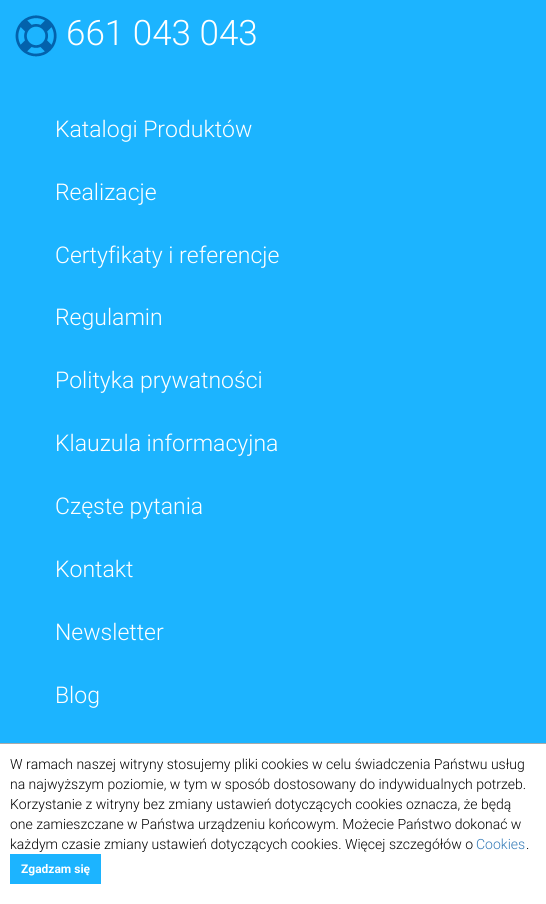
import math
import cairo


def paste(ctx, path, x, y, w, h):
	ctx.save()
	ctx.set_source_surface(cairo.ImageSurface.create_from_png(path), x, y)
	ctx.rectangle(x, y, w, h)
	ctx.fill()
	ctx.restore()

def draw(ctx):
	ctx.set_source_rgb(0.11, 0.706, 1)
	ctx.paint()
	paste(ctx, 'media/1.png', 15, 15, 42, 42)
	ctx.select_font_face('Roboto Light')
	ctx.set_font_size(35)
	ctx.set_source_rgb(1, 1, 1)
	ctx.move_to(66, 45)
	ctx.show_text('661 043 043')
	ctx.set_font_size(23)
	for x, y, s in [
		(55, 137, 'Katalogi Produktów'),
		(55, 200, 'Realizacje'),
		(55, 263, 'Certyfikaty i referencje'),
		(55, 325, 'Regulamin'),
		(55, 388, 'Polityka prywatności'),
		(55, 451, 'Klauzula informacyjna'),
		(55, 514, 'Częste pytania'),
		(55, 577, 'Kontakt'),
		(55, 640, 'Newsletter'),
		(55, 703, 'Blog'),
	]:
		ctx.move_to(x, y)
		ctx.show_text(s)
	ctx.rectangle(0, 744, 546, 160)
	ctx.fill()
	ctx.set_source_rgb(0.667, 0.667, 0.667)
	ctx.rectangle(0, 743, 546, 1)
	ctx.fill()
	ctx.set_font_size(14)
	ctx.set_source_rgb(0, 0, 0)
	for x, y, s in [
		(10, 769, 'W ramach naszej witryny stosujemy pliki cookies w celu świadczenia Państwu usług'),
		(10, 789, 'na najwyższym poziomie, w tym w sposób dostosowany do indywidualnych potrzeb.'),
		(10, 809, 'Korzystanie z witryny bez zmiany ustawień dotyczących cookies oznacza, że będą'),
		(10, 829, 'one zamieszczane w Państwa urządzeniu końcowym. Możecie Państwo dokonać w'),
		(10, 849, 'każdym czasie zmiany ustawień dotyczących cookies. Więcej szczegółów o'),
	]:
		ctx.move_to(x, y)
		ctx.show_text(s)
	ctx.set_source_rgb(0.2, 0.478, 0.718)
	ctx.move_to(476, 849)
	ctx.show_text('Cookies')
	ctx.set_source_rgb(0, 0, 0)
	ctx.move_to(526, 849)
	ctx.show_text('.')
	ctx.set_source_rgb(0.11, 0.706, 1)
	ctx.rectangle(10, 854, 91, 30)
	ctx.fill()
	ctx.select_font_face('Roboto', cairo.FONT_SLANT_NORMAL, cairo.FONT_WEIGHT_BOLD)
	ctx.set_font_size(12)
	ctx.set_source_rgb(1, 1, 1)
	ctx.move_to(21, 873)
	ctx.show_text('Zgadzam się')


surface = cairo.ImageSurface(cairo.FORMAT_RGB24, 546, 904)
ctx = cairo.Context(surface)
options = cairo.FontOptions()
options.set_hint_metrics(cairo.HINT_METRICS_OFF)
options.set_hint_style(cairo.HINT_STYLE_NONE)
ctx.set_font_options(options)
ctx.set_miter_limit(4)
draw(ctx)
surface.write_to_png('image.png')
